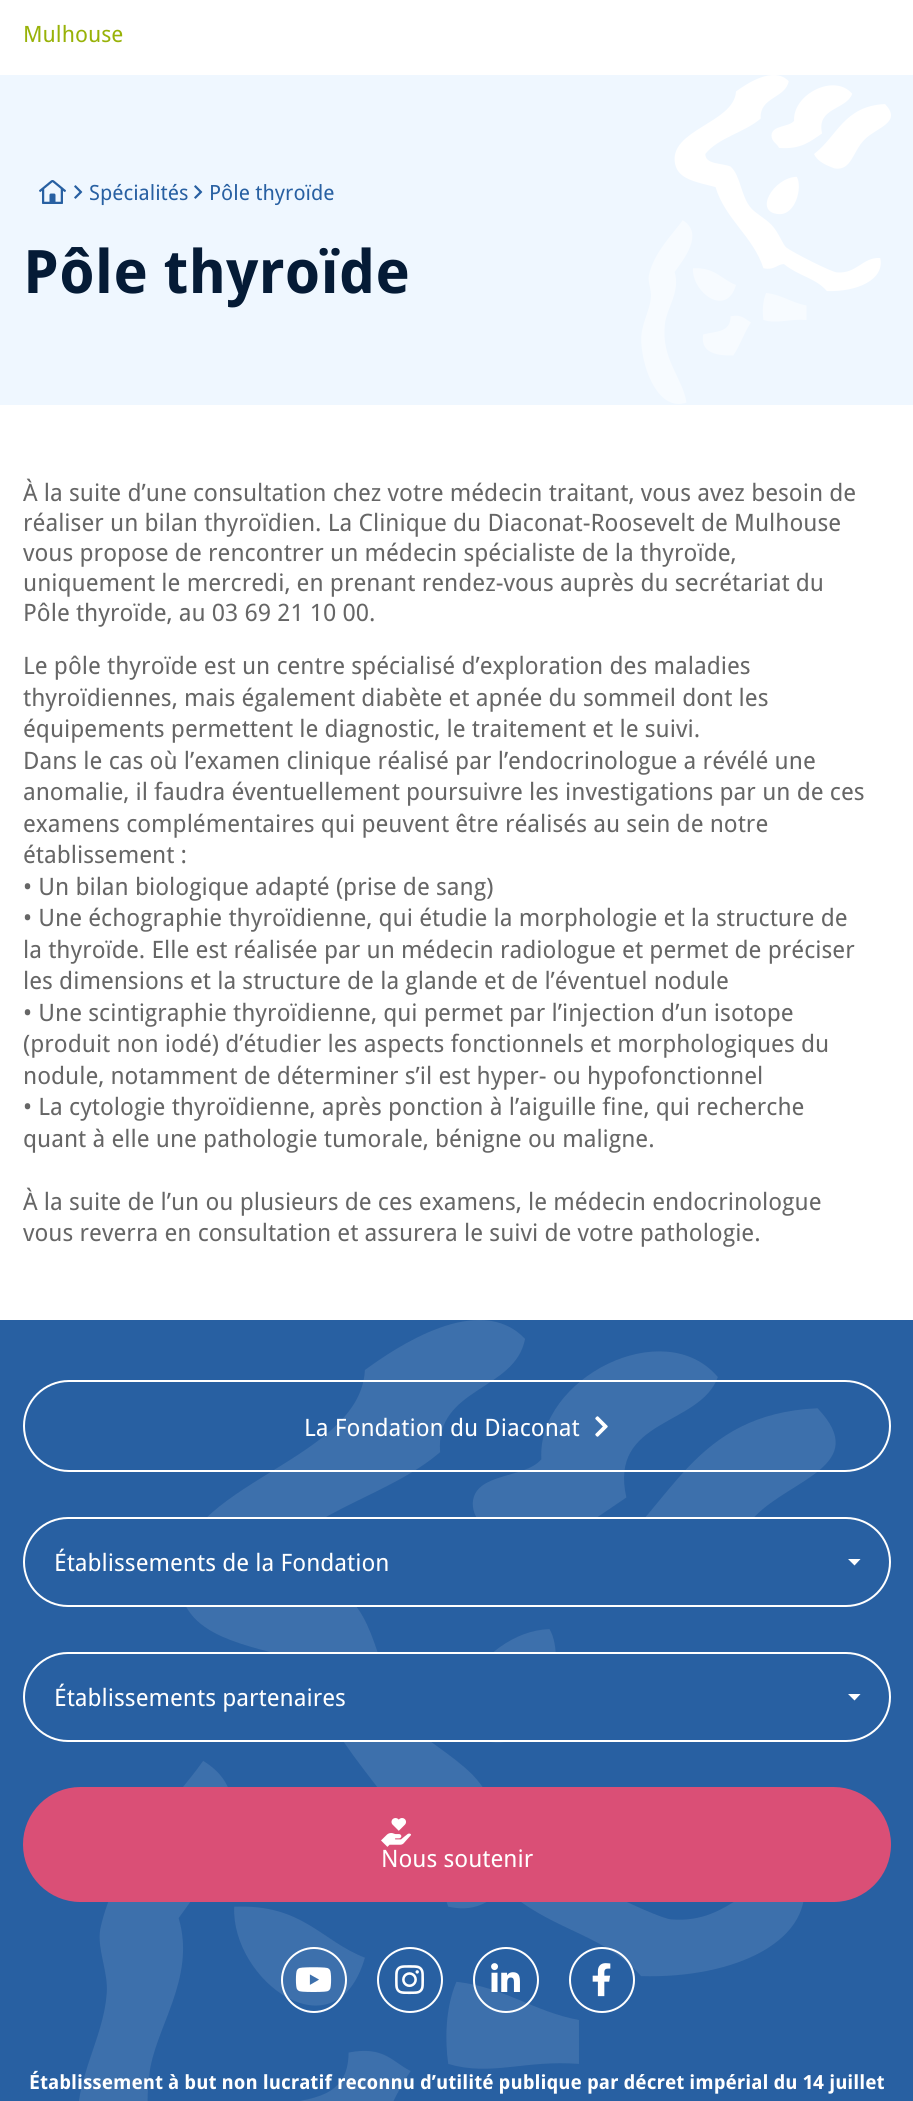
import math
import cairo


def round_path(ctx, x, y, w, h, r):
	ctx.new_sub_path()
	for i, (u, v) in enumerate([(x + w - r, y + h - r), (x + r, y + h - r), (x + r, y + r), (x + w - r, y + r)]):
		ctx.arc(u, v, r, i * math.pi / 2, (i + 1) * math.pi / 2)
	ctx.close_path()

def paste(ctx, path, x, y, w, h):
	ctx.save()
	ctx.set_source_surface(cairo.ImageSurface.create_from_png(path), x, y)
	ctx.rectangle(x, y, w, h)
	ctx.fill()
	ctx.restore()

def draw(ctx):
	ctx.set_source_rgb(1, 1, 1)
	ctx.paint()
	ctx.select_font_face('Droid Sans')
	ctx.set_font_size(22.5)
	ctx.set_source_rgb(0.596, 0.698, 0.035)
	ctx.move_to(23, 42)
	ctx.show_text('Mulhouse')
	ctx.set_source_rgb(0.937, 0.965, 1)
	ctx.rectangle(0, 75, 913, 330)
	ctx.fill()
	paste(ctx, 'media/1.png', 641, 75, 250, 329)
	paste(ctx, 'media/2.png', 39, 180, 27, 24)
	paste(ctx, 'media/3.png', 74, 185, 9, 14)
	ctx.set_font_size(21)
	ctx.set_source_rgb(0.157, 0.376, 0.635)
	ctx.move_to(89, 200)
	ctx.show_text('Spécialités')
	paste(ctx, 'media/3.png', 194, 185, 9, 14)
	ctx.move_to(209, 200)
	ctx.show_text('Pôle thyroïde')
	ctx.select_font_face('Droid Sans', cairo.FONT_SLANT_NORMAL, cairo.FONT_WEIGHT_BOLD)
	ctx.set_font_size(60)
	ctx.set_source_rgb(0.02, 0.106, 0.212)
	ctx.move_to(23, 293)
	ctx.show_text('Pôle thyroïde')
	ctx.select_font_face('Droid Sans')
	ctx.set_font_size(24)
	ctx.set_source_rgb(0.4, 0.4, 0.4)
	for x, y, s in [
		(23, 501, 'À la suite d’une consultation chez votre médecin traitant, vous avez besoin de'),
		(23, 531, 'réaliser un bilan thyroïdien. La Clinique du Diaconat-Roosevelt de Mulhouse'),
		(23, 561, 'vous propose de rencontrer un médecin spécialiste de la thyroïde,'),
		(23, 591, 'uniquement le mercredi, en prenant rendez-vous auprès du secrétariat du'),
		(23, 621, 'Pôle thyroïde, au 03 69 21 10 00.'),
		(23, 674, 'Le pôle thyroïde est un centre spécialisé d’exploration des maladies'),
		(23, 706, 'thyroïdiennes, mais également diabète et apnée du sommeil dont les'),
		(23, 737, 'équipements permettent le diagnostic, le traitement et le suivi.'),
		(23, 769, 'Dans le cas où l’examen clinique réalisé par l’endocrinologue a révélé une'),
		(23, 800, 'anomalie, il faudra éventuellement poursuivre les investigations par un de ces'),
		(23, 832, 'examens complémentaires qui peuvent être réalisés au sein de notre'),
		(23, 863, 'établissement :'),
		(23, 895, '• Un bilan biologique adapté (prise de sang)'),
		(23, 926, '• Une échographie thyroïdienne, qui étudie la morphologie et la structure de'),
		(23, 958, 'la thyroïde. Elle est réalisée par un médecin radiologue et permet de préciser'),
		(23, 989, 'les dimensions et la structure de la glande et de l’éventuel nodule'),
		(23, 1021, '• Une scintigraphie thyroïdienne, qui permet par l’injection d’un isotope'),
		(23, 1052, '(produit non iodé) d’étudier les aspects fonctionnels et morphologiques du'),
		(23, 1084, 'nodule, notamment de déterminer s’il est hyper- ou hypofonctionnel'),
		(23, 1115, '• La cytologie thyroïdienne, après ponction à l’aiguille fine, qui recherche'),
		(23, 1147, 'quant à elle une pathologie tumorale, bénigne ou maligne.'),
		(23, 1210, 'À la suite de l’un ou plusieurs de ces examens, le médecin endocrinologue'),
		(23, 1241, 'vous reverra en consultation et assurera le suivi de votre pathologie.'),
	]:
		ctx.move_to(x, y)
		ctx.show_text(s)
	ctx.set_source_rgb(0.157, 0.376, 0.635)
	ctx.rectangle(0, 1320, 913, 781)
	ctx.fill()
	paste(ctx, 'media/4.png', 79, 1320, 757, 781)
	round_path(ctx, 24, 1381, 866, 90, 45)
	ctx.set_source_rgb(1, 1, 1)
	ctx.stroke()
	ctx.move_to(304, 1436)
	ctx.show_text('La Fondation du Diaconat')
	paste(ctx, 'media/5.png', 595, 1416, 13, 21)
	ctx.set_source_rgb(0.157, 0.376, 0.635)
	round_path(ctx, 23, 1517, 868, 90, 45)
	ctx.fill()
	ctx.save()
	ctx.rectangle(848, 1559, 15, 7)
	ctx.clip()
	ctx.set_source_rgb(1, 1, 1)
	ctx.new_path()
	ctx.move_to(854.5, 1565.5)
	ctx.line_to(847.5, 1558.5)
	ctx.line_to(861, 1558.5)
	ctx.close_path()
	ctx.fill()
	ctx.restore()
	round_path(ctx, 24, 1518, 866, 88, 44)
	ctx.set_source_rgb(1, 1, 1)
	ctx.stroke()
	ctx.move_to(54, 1571)
	ctx.show_text('Établissements de la Fondation')
	ctx.set_source_rgb(0.157, 0.376, 0.635)
	round_path(ctx, 23, 1652, 868, 90, 45)
	ctx.fill()
	ctx.save()
	ctx.rectangle(848, 1694, 15, 7)
	ctx.clip()
	ctx.set_source_rgb(1, 1, 1)
	ctx.new_path()
	ctx.move_to(854.5, 1700.5)
	ctx.line_to(847.5, 1693.5)
	ctx.line_to(861, 1693.5)
	ctx.close_path()
	ctx.fill()
	ctx.restore()
	round_path(ctx, 24, 1653, 866, 88, 44)
	ctx.set_source_rgb(1, 1, 1)
	ctx.stroke()
	ctx.move_to(54, 1706)
	ctx.show_text('Établissements partenaires')
	ctx.set_source_rgb(0.855, 0.31, 0.463)
	round_path(ctx, 24, 1788, 866, 113, 56.5)
	ctx.fill_preserve()
	ctx.stroke()
	paste(ctx, 'media/6.png', 381, 1818, 30, 29)
	ctx.set_source_rgb(1, 1, 1)
	ctx.move_to(381, 1867)
	ctx.show_text('Nous soutenir')
	ctx.new_path()
	ctx.arc(314, 1980, 32, 0, 2 * math.pi)
	ctx.stroke()
	paste(ctx, 'media/7.png', 295, 1967, 37, 25)
	ctx.arc(410, 1980, 32, 0, 2 * math.pi)
	ctx.stroke()
	paste(ctx, 'media/8.png', 395, 1965, 29, 30)
	ctx.arc(506, 1980, 32, 0, 2 * math.pi)
	ctx.stroke()
	paste(ctx, 'media/9.png', 491, 1963, 29, 29)
	ctx.arc(602, 1980, 32, 0, 2 * math.pi)
	ctx.stroke()
	paste(ctx, 'media/10.png', 592, 1963, 19, 34)
	ctx.select_font_face('Droid Sans', cairo.FONT_SLANT_NORMAL, cairo.FONT_WEIGHT_BOLD)
	ctx.set_font_size(19.5)
	ctx.move_to(29, 2089)
	ctx.show_text('Établissement à but non lucratif reconnu d’utilité publique par décret impérial du 14 juillet')


surface = cairo.ImageSurface(cairo.FORMAT_RGB24, 913, 2101)
ctx = cairo.Context(surface)
options = cairo.FontOptions()
options.set_hint_metrics(cairo.HINT_METRICS_OFF)
options.set_hint_style(cairo.HINT_STYLE_NONE)
ctx.set_font_options(options)
ctx.set_miter_limit(4)
draw(ctx)
surface.write_to_png('image.png')
